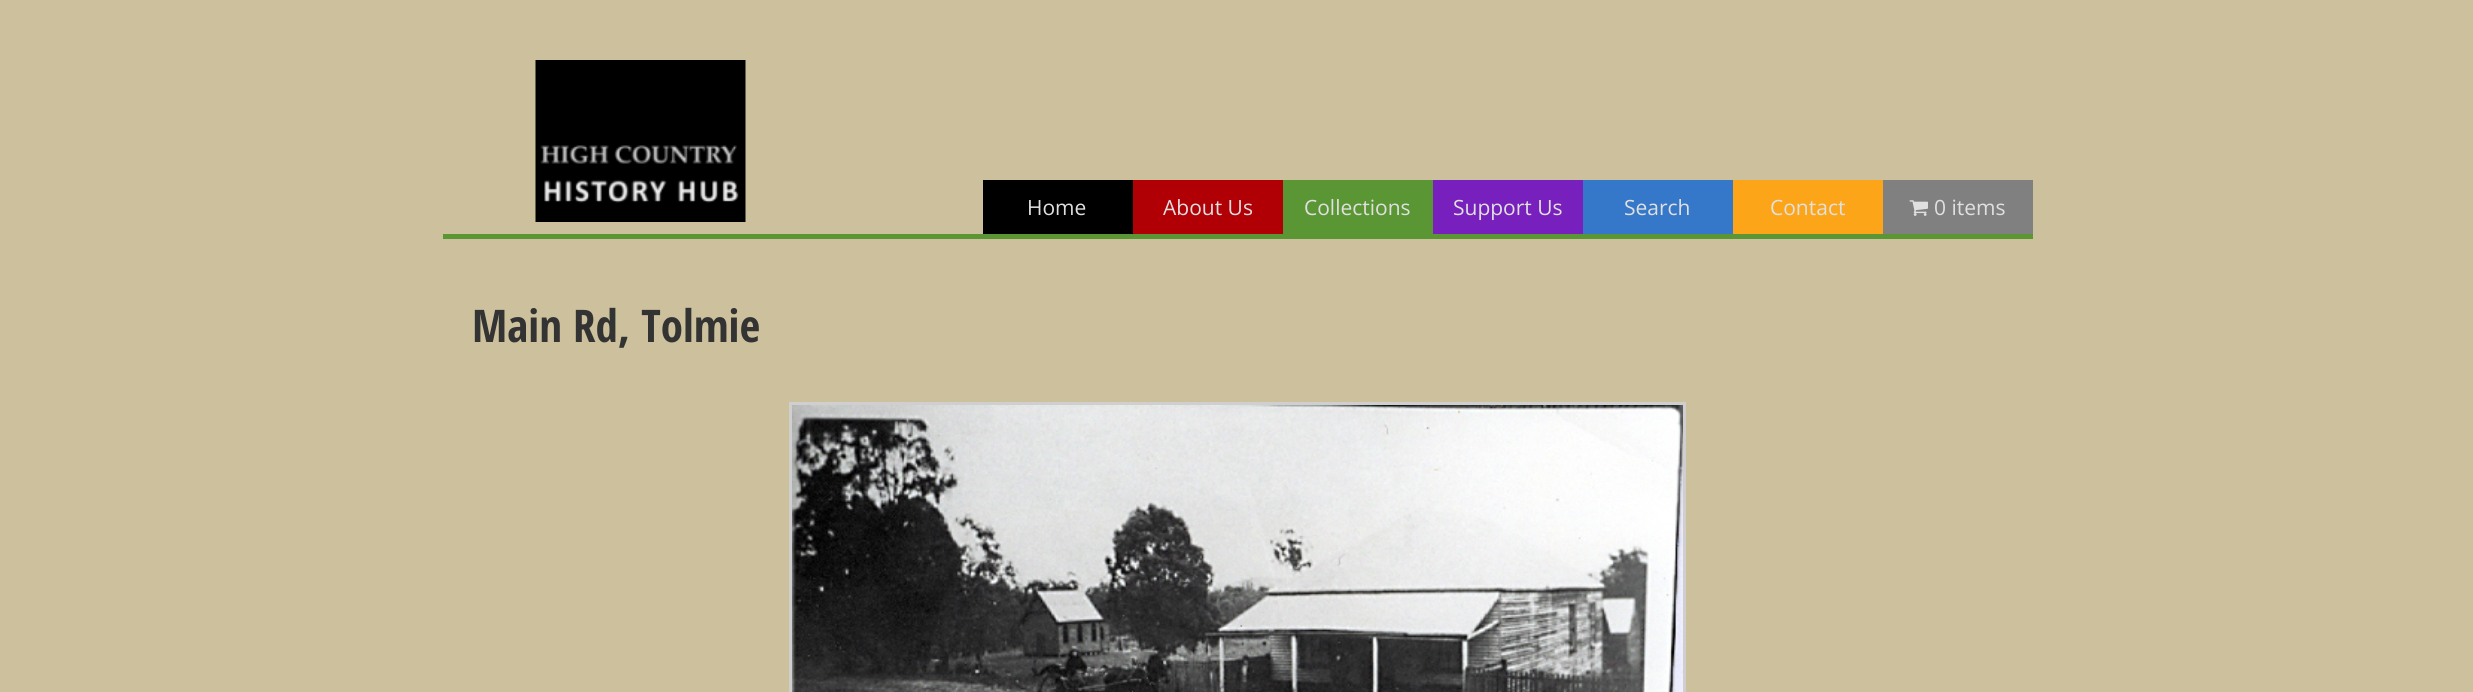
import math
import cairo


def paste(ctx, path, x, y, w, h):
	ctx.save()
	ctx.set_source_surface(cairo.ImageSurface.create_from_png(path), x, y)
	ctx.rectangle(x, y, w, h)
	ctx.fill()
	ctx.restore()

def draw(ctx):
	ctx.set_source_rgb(0.8, 0.757, 0.612)
	ctx.paint()
	paste(ctx, 'media/1.png', 535, 60, 211, 162)
	ctx.set_source_rgb(0, 0, 0)
	ctx.rectangle(983, 180, 150, 54)
	ctx.fill()
	ctx.select_font_face('Open Sans')
	ctx.set_font_size(21)
	ctx.set_source_rgb(0.878, 0.878, 0.878)
	ctx.move_to(1027, 215)
	ctx.show_text('Home')
	ctx.set_source_rgb(0.69, 0, 0.02)
	ctx.rectangle(1133, 180, 150, 54)
	ctx.fill()
	ctx.set_source_rgb(0.878, 0.878, 0.878)
	ctx.move_to(1163, 215)
	ctx.show_text('About Us')
	ctx.set_source_rgb(0.353, 0.588, 0.204)
	ctx.rectangle(1283, 180, 150, 54)
	ctx.fill()
	ctx.set_source_rgb(0.878, 0.878, 0.878)
	ctx.move_to(1304, 215)
	ctx.show_text('Collections')
	ctx.set_source_rgb(0.471, 0.125, 0.741)
	ctx.rectangle(1433, 180, 150, 54)
	ctx.fill()
	ctx.set_source_rgb(0.878, 0.878, 0.878)
	ctx.move_to(1453, 215)
	ctx.show_text('Support Us')
	ctx.set_source_rgb(0.208, 0.471, 0.788)
	ctx.rectangle(1583, 180, 150, 54)
	ctx.fill()
	ctx.set_source_rgb(0.878, 0.878, 0.878)
	ctx.move_to(1624, 215)
	ctx.show_text('Search')
	ctx.set_source_rgb(0.992, 0.647, 0.098)
	ctx.rectangle(1733, 180, 150, 54)
	ctx.fill()
	ctx.set_source_rgb(0.878, 0.878, 0.878)
	ctx.move_to(1770, 215)
	ctx.show_text('Contact')
	ctx.set_source_rgb(0.502, 0.502, 0.502)
	ctx.rectangle(1883, 180, 150, 54)
	ctx.fill()
	paste(ctx, 'media/2.png', 1909, 200, 19, 16)
	ctx.set_source_rgb(0.878, 0.878, 0.878)
	ctx.move_to(1934, 215)
	ctx.show_text('0 items')
	ctx.set_source_rgb(0.353, 0.588, 0.204)
	ctx.rectangle(443, 234, 1590, 5)
	ctx.fill()
	ctx.select_font_face('Open Sans Condensed', cairo.FONT_SLANT_NORMAL, cairo.FONT_WEIGHT_BOLD)
	ctx.set_font_size(45)
	ctx.set_source_rgb(0.2, 0.2, 0.2)
	ctx.move_to(472, 342)
	ctx.show_text('Main Rd, Tolmie')
	ctx.rectangle(790.5, 403.5, 894, 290)
	ctx.set_source_rgb(0.812, 0.812, 0.812)
	ctx.set_line_width(3)
	ctx.stroke()
	paste(ctx, 'media/3.png', 792, 405, 891, 287)


surface = cairo.ImageSurface(cairo.FORMAT_RGB24, 2473, 692)
ctx = cairo.Context(surface)
options = cairo.FontOptions()
options.set_hint_metrics(cairo.HINT_METRICS_OFF)
options.set_hint_style(cairo.HINT_STYLE_NONE)
ctx.set_font_options(options)
ctx.set_miter_limit(4)
draw(ctx)
surface.write_to_png('image.png')
